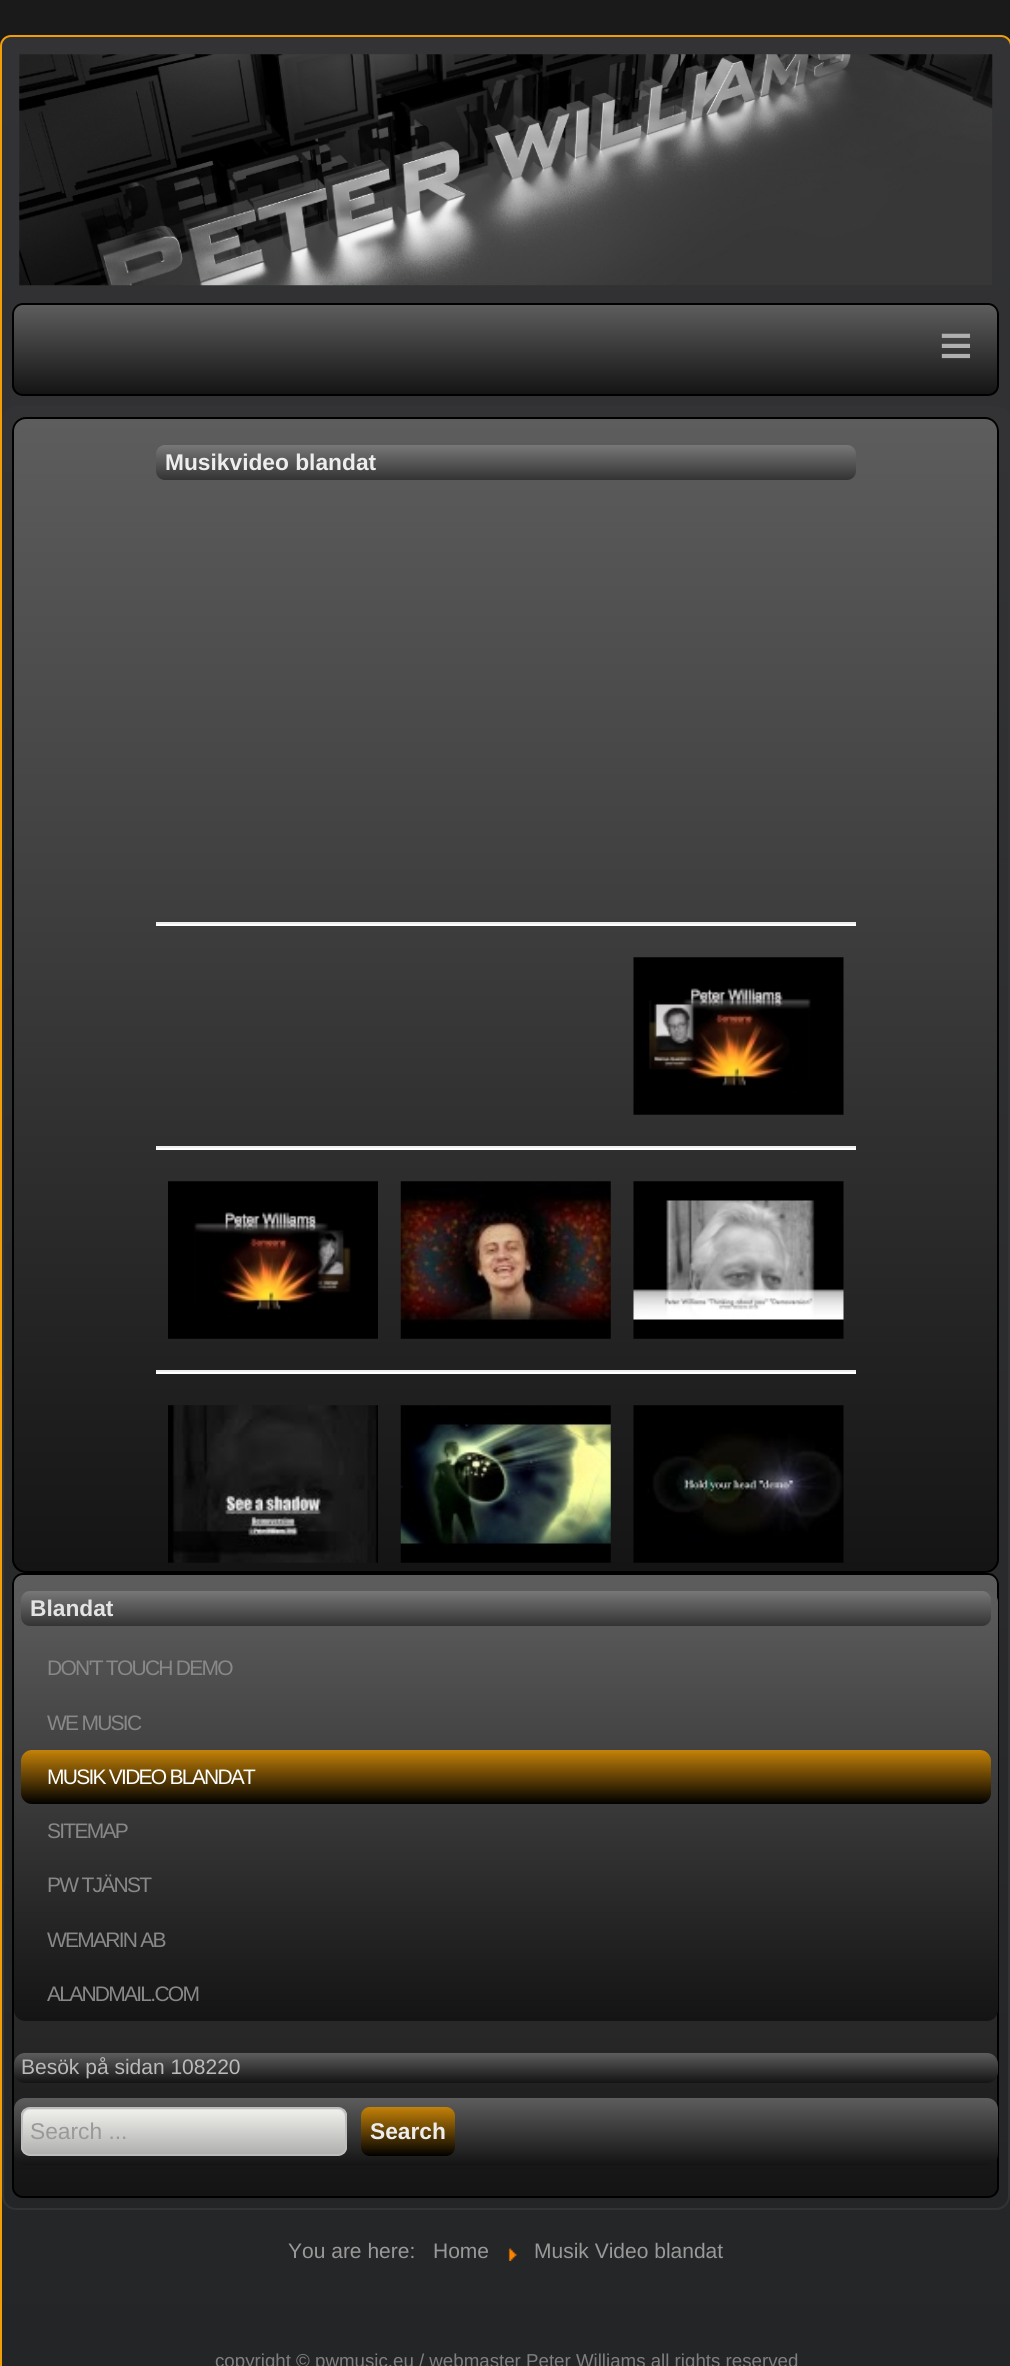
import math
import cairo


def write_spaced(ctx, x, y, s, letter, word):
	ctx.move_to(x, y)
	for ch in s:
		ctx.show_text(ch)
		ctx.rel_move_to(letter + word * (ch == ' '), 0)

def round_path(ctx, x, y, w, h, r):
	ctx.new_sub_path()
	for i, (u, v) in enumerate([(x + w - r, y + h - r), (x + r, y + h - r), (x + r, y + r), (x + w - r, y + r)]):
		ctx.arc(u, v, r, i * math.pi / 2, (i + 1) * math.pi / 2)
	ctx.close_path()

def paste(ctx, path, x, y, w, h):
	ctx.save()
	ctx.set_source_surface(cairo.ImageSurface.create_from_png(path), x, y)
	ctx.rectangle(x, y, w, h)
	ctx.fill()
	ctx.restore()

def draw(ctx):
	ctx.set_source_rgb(0.102, 0.102, 0.102)
	ctx.paint()
	ctx.save()
	round_path(ctx, 0, 35, 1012, 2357, 11)
	ctx.clip()
	gradient = cairo.LinearGradient(1.8, 37, 1.8, 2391)
	gradient.add_color_stop_rgba(0, 0.2, 0.2, 0.208, 1)
	gradient.add_color_stop_rgba(1, 0.141, 0.145, 0.149, 1)
	ctx.set_source(gradient)
	ctx.rectangle(0, 37, 1010, 2329)
	ctx.fill()
	ctx.restore()
	round_path(ctx, 1, 36, 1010, 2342, 10)
	ctx.set_source_rgb(0.941, 0.624, 0.039)
	ctx.stroke()
	paste(ctx, 'media/1.png', 19, 54, 974, 232)
	ctx.save()
	round_path(ctx, 12, 303, 987, 93, 11)
	ctx.clip()
	gradient = cairo.LinearGradient(14, 305, 14, 394)
	gradient.add_color_stop_rgba(0, 0.369, 0.365, 0.369, 1)
	gradient.add_color_stop_rgba(1, 0.078, 0.078, 0.078, 1)
	ctx.set_source(gradient)
	ctx.rectangle(12, 305, 987, 89)
	ctx.fill()
	ctx.restore()
	round_path(ctx, 13, 304, 985, 91, 10)
	ctx.set_source_rgb(0, 0, 0)
	ctx.stroke()
	ctx.select_font_face('Liberation Sans')
	ctx.set_font_size(58)
	ctx.set_source_rgb(0.69, 0.69, 0.69)
	ctx.move_to(939, 365)
	ctx.show_text('≡')
	ctx.save()
	round_path(ctx, 2, 406, 1008, 1804, 14)
	ctx.clip()
	gradient = cairo.LinearGradient(3.5, 408, 3.5, 2209)
	gradient.add_color_stop_rgba(0, 0.2, 0.2, 0.208, 1)
	gradient.add_color_stop_rgba(1, 0.141, 0.145, 0.149, 1)
	ctx.set_source(gradient)
	ctx.rectangle(2, 408, 1008, 1801)
	ctx.fill()
	ctx.restore()
	round_path(ctx, 3, 407, 1006, 1802, 13)
	ctx.set_source_rgb(0.2, 0.2, 0.208)
	ctx.stroke()
	ctx.save()
	round_path(ctx, 12, 417, 987, 1156, 14)
	ctx.clip()
	gradient = cairo.LinearGradient(14, 418, 14, 1572)
	gradient.add_color_stop_rgba(0, 0.369, 0.365, 0.369, 1)
	gradient.add_color_stop_rgba(1, 0.078, 0.078, 0.078, 1)
	ctx.set_source(gradient)
	ctx.rectangle(12, 418, 987, 1154)
	ctx.fill()
	ctx.restore()
	round_path(ctx, 13, 418, 985, 1154, 13)
	ctx.set_source_rgb(0, 0, 0)
	ctx.stroke()
	gradient = cairo.LinearGradient(156, 445, 156, 480)
	gradient.add_color_stop_rgba(0, 0.471, 0.471, 0.471, 1)
	gradient.add_color_stop_rgba(1, 0.2, 0.2, 0.2, 1)
	ctx.set_source(gradient)
	round_path(ctx, 156, 445, 700, 35, 9)
	ctx.fill()
	ctx.select_font_face('Liberation Sans', cairo.FONT_SLANT_NORMAL, cairo.FONT_WEIGHT_BOLD)
	ctx.set_font_size(22.75)
	ctx.set_source_rgb(0.929, 0.929, 0.929)
	ctx.move_to(165, 470)
	ctx.show_text('Musikvideo blandat')
	ctx.set_source_rgb(0.933, 0.933, 0.933)
	ctx.rectangle(156, 922, 700, 2)
	ctx.fill()
	ctx.set_source_rgb(1, 1, 1)
	ctx.rectangle(156, 924, 700, 2)
	ctx.fill()
	paste(ctx, 'media/2.png', 633, 957, 211, 158)
	ctx.set_source_rgb(0.933, 0.933, 0.933)
	ctx.rectangle(156, 1146, 700, 2)
	ctx.fill()
	ctx.set_source_rgb(1, 1, 1)
	ctx.rectangle(156, 1148, 700, 2)
	ctx.fill()
	paste(ctx, 'media/3.png', 168, 1181, 210, 158)
	paste(ctx, 'media/4.png', 400, 1181, 211, 158)
	paste(ctx, 'media/5.png', 633, 1181, 211, 158)
	ctx.set_source_rgb(0.933, 0.933, 0.933)
	ctx.rectangle(156, 1370, 700, 2)
	ctx.fill()
	ctx.set_source_rgb(1, 1, 1)
	ctx.rectangle(156, 1372, 700, 2)
	ctx.fill()
	paste(ctx, 'media/6.png', 168, 1405, 210, 158)
	paste(ctx, 'media/7.png', 400, 1405, 211, 158)
	paste(ctx, 'media/8.png', 633, 1405, 211, 158)
	ctx.save()
	round_path(ctx, 12, 1573, 987, 625, 11)
	ctx.clip()
	gradient = cairo.LinearGradient(14, 1575, 14, 2196)
	gradient.add_color_stop_rgba(0, 0.369, 0.365, 0.369, 1)
	gradient.add_color_stop_rgba(1, 0.078, 0.078, 0.078, 1)
	ctx.set_source(gradient)
	ctx.rectangle(12, 1575, 987, 621)
	ctx.fill()
	ctx.restore()
	round_path(ctx, 13, 1574, 985, 623, 10)
	ctx.set_source_rgb(0, 0, 0)
	ctx.stroke()
	gradient = cairo.LinearGradient(14, 1591, 14, 2021)
	gradient.add_color_stop_rgba(0, 0.369, 0.365, 0.369, 1)
	gradient.add_color_stop_rgba(1, 0.078, 0.078, 0.078, 1)
	ctx.set_source(gradient)
	round_path(ctx, 14, 1591, 984, 430, 11)
	ctx.fill()
	gradient = cairo.LinearGradient(21, 1591, 21, 1626)
	gradient.add_color_stop_rgba(0, 0.471, 0.471, 0.471, 1)
	gradient.add_color_stop_rgba(1, 0.2, 0.2, 0.2, 1)
	ctx.set_source(gradient)
	round_path(ctx, 21, 1591, 970, 35, 9)
	ctx.fill()
	ctx.set_source_rgb(0.89, 0.89, 0.89)
	ctx.move_to(30, 1616)
	ctx.show_text('Blandat')
	ctx.select_font_face('Liberation Sans')
	ctx.set_font_size(21)
	ctx.set_source_rgb(0.533, 0.533, 0.533)
	write_spaced(ctx, 47, 1675, 'DON\'T TOUCH DEMO', -1.75, 0)
	write_spaced(ctx, 47, 1730, 'WE MUSIC', -1.75, 0)
	gradient = cairo.LinearGradient(21, 1750, 21, 1804)
	gradient.add_color_stop_rgba(0, 0.769, 0.51, 0.031, 1)
	gradient.add_color_stop_rgba(1, 0, 0, 0, 1)
	ctx.set_source(gradient)
	round_path(ctx, 21, 1750, 970, 54, 11)
	ctx.fill()
	ctx.set_source_rgb(1, 1, 1)
	write_spaced(ctx, 47, 1784, 'MUSIK VIDEO BLANDAT', -1.75, 0)
	ctx.set_source_rgb(0.533, 0.533, 0.533)
	for x, y, s in [
		(47, 1838, 'SITEMAP'),
		(47, 1892, 'PW TJÄNST'),
		(47, 1947, 'WEMARIN AB'),
		(47, 2001, 'ALANDMAIL.COM'),
	]:
		write_spaced(ctx, x, y, s, -1.75, 0)
	gradient = cairo.LinearGradient(14, 2053, 14, 2083)
	gradient.add_color_stop_rgba(0, 0.369, 0.365, 0.369, 1)
	gradient.add_color_stop_rgba(1, 0.078, 0.078, 0.078, 1)
	ctx.set_source(gradient)
	round_path(ctx, 14, 2053, 984, 30, 11)
	ctx.fill()
	ctx.set_source_rgb(0.729, 0.729, 0.729)
	ctx.move_to(21, 2074)
	ctx.show_text('Besök på sidan 108220')
	gradient = cairo.LinearGradient(14, 2098, 14, 2165)
	gradient.add_color_stop_rgba(0, 0.369, 0.365, 0.369, 1)
	gradient.add_color_stop_rgba(1, 0.078, 0.078, 0.078, 1)
	ctx.set_source(gradient)
	round_path(ctx, 14, 2098, 984, 67, 11)
	ctx.fill()
	ctx.save()
	round_path(ctx, 21, 2107, 326, 49, 9)
	ctx.clip()
	gradient = cairo.LinearGradient(23, 2109, 23, 2154)
	gradient.add_color_stop_rgba(0, 0.941, 0.941, 0.929, 1)
	gradient.add_color_stop_rgba(1, 0.69, 0.69, 0.682, 1)
	ctx.set_source(gradient)
	ctx.rectangle(21, 2109, 326, 45)
	ctx.fill()
	ctx.restore()
	ctx.set_source_rgba(0, 0, 0, 0.07)
	ctx.new_path()
	ctx.move_to(30, 2110)
	ctx.line_to(338, 2110)
	ctx.curve_to(342, 2110, 345, 2114, 345, 2118)
	ctx.line_to(345, 2116)
	ctx.curve_to(345, 2112, 342, 2109, 338, 2109)
	ctx.line_to(30, 2109)
	ctx.curve_to(26, 2109, 23, 2112, 23, 2116)
	ctx.line_to(23, 2118)
	ctx.curve_to(23, 2114, 26, 2110, 30, 2110)
	ctx.close_path()
	ctx.fill()
	round_path(ctx, 22, 2108, 324, 47, 8)
	ctx.set_source_rgb(0.745, 0.745, 0.745)
	ctx.stroke()
	ctx.set_font_size(22.75)
	ctx.set_source_rgb(0.6, 0.6, 0.6)
	ctx.move_to(30, 2139)
	ctx.show_text('Search ...')
	gradient = cairo.LinearGradient(361, 2107, 361, 2156)
	gradient.add_color_stop_rgba(0, 0.769, 0.51, 0.031, 1)
	gradient.add_color_stop_rgba(1, 0, 0, 0, 1)
	ctx.set_source(gradient)
	round_path(ctx, 361, 2107, 94, 49, 9)
	ctx.fill()
	ctx.select_font_face('Liberation Sans', cairo.FONT_SLANT_NORMAL, cairo.FONT_WEIGHT_BOLD)
	ctx.set_source_rgb(0.929, 0.929, 0.929)
	ctx.move_to(370, 2139)
	ctx.show_text('Search')
	ctx.select_font_face('Liberation Sans')
	ctx.set_font_size(21)
	ctx.set_source_rgb(0.6, 0.6, 0.6)
	ctx.move_to(288, 2258)
	ctx.show_text('You are here:')
	ctx.move_to(433, 2258)
	ctx.show_text('Home')
	paste(ctx, 'media/9.png', 508, 2248, 9, 13)
	ctx.move_to(534, 2258)
	ctx.show_text('Musik Video blandat')
	ctx.set_font_size(18.7)
	ctx.set_source_rgb(0.502, 0.502, 0.502)
	ctx.move_to(215, 2367)
	ctx.show_text('copyright © pwmusic.eu / webmaster Peter Williams all rights reserved')


surface = cairo.ImageSurface(cairo.FORMAT_RGB24, 1010, 2366)
ctx = cairo.Context(surface)
options = cairo.FontOptions()
options.set_hint_metrics(cairo.HINT_METRICS_OFF)
options.set_hint_style(cairo.HINT_STYLE_NONE)
ctx.set_font_options(options)
ctx.set_miter_limit(4)
draw(ctx)
surface.write_to_png('image.png')
